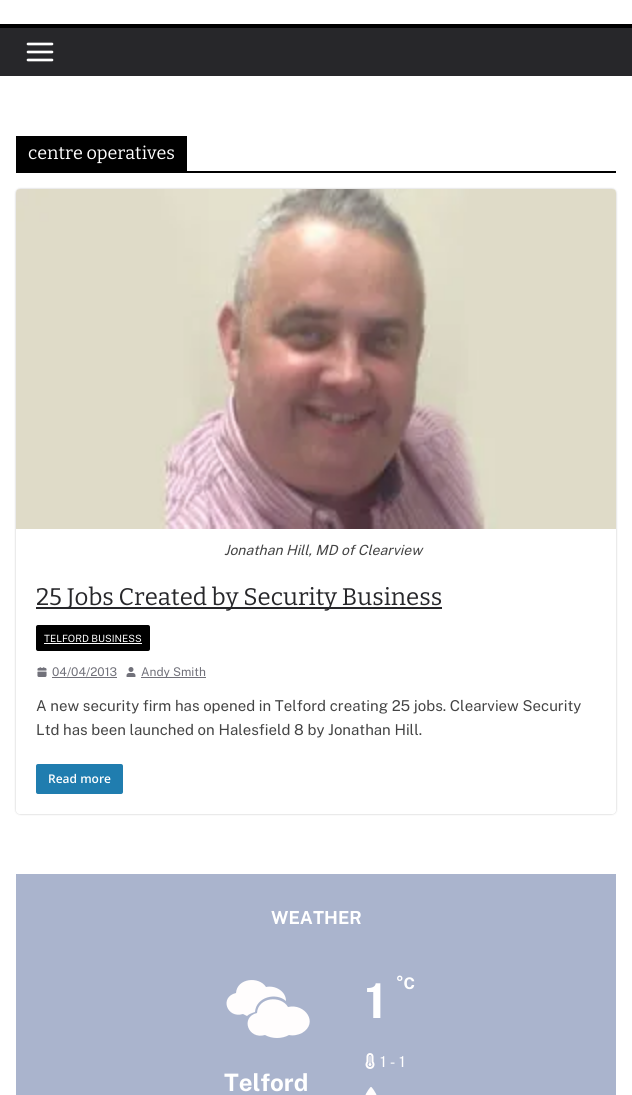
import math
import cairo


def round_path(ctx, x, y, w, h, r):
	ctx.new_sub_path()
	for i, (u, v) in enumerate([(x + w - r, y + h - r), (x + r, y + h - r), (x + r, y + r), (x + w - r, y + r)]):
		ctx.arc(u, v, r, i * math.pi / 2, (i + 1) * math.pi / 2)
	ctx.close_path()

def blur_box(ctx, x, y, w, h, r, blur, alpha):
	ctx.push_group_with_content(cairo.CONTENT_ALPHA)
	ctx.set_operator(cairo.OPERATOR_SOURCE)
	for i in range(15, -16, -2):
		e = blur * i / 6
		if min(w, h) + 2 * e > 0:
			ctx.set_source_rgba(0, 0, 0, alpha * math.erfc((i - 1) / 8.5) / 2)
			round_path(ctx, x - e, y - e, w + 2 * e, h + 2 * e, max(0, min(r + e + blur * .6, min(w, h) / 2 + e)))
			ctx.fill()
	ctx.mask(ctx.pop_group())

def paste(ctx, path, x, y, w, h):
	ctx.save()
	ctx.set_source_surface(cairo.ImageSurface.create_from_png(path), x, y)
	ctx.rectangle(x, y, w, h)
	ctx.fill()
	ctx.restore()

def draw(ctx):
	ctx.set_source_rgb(1, 1, 1)
	ctx.paint()
	ctx.set_source_rgb(0.153, 0.153, 0.165)
	ctx.rectangle(0, 28, 632, 48)
	ctx.fill()
	ctx.set_source_rgb(0, 0, 0)
	ctx.rectangle(0, 24, 632, 4)
	ctx.fill()
	paste(ctx, 'media/1.png', 26, 42, 28, 20)
	ctx.rectangle(16, 171, 600, 2)
	ctx.fill()
	ctx.rectangle(16, 136, 171, 35)
	ctx.fill()
	ctx.select_font_face('Bitter Thin')
	ctx.set_font_size(18)
	ctx.set_source_rgb(1, 1, 1)
	ctx.move_to(28, 159)
	ctx.show_text('centre operatives')
	ctx.save()
	ctx.set_fill_rule(cairo.FILL_RULE_EVEN_ODD)
	ctx.new_path()
	ctx.move_to(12, 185)
	ctx.line_to(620, 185)
	ctx.line_to(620, 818)
	ctx.line_to(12, 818)
	ctx.close_path()
	ctx.move_to(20, 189)
	ctx.line_to(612, 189)
	ctx.curve_to(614, 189, 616, 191, 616, 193)
	ctx.line_to(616, 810)
	ctx.curve_to(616, 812, 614, 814, 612, 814)
	ctx.line_to(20, 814)
	ctx.curve_to(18, 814, 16, 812, 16, 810)
	ctx.line_to(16, 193)
	ctx.curve_to(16, 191, 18, 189, 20, 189)
	ctx.close_path()
	ctx.clip()
	ctx.set_source_rgb(0, 0, 0)
	blur_box(ctx, 16, 189, 600, 625, 4, 1, 0.24)
	ctx.restore()
	paste(ctx, 'media/2.png', 16, 189, 600, 340)
	ctx.select_font_face('Public Sans Thin', cairo.FONT_SLANT_ITALIC)
	ctx.set_font_size(14)
	ctx.set_source_rgb(0.267, 0.267, 0.267)
	ctx.move_to(224, 555)
	ctx.show_text('Jonathan Hill, MD of Clearview')
	ctx.set_source_rgb(0.153, 0.153, 0.165)
	ctx.rectangle(36, 607, 406, 2)
	ctx.fill()
	ctx.select_font_face('Bitter Thin')
	ctx.set_font_size(24)
	ctx.move_to(36, 605)
	ctx.show_text('25 Jobs Created by Security Business')
	ctx.set_source_rgb(0, 0, 0)
	round_path(ctx, 36, 625, 114, 26, 2)
	ctx.fill()
	ctx.select_font_face('Public Sans Thin')
	ctx.set_font_size(10)
	ctx.set_source_rgb(1, 1, 1)
	ctx.move_to(44, 642)
	ctx.show_text('TELFORD BUSINESS')
	ctx.rectangle(44, 643, 98, 1)
	ctx.fill()
	paste(ctx, 'media/3.png', 37, 667, 10, 10)
	ctx.set_font_size(12)
	ctx.set_source_rgb(0.443, 0.443, 0.478)
	ctx.move_to(52, 676)
	ctx.show_text('04/04/2013')
	ctx.rectangle(52, 677, 65, 1)
	ctx.fill()
	paste(ctx, 'media/4.png', 126, 667, 10, 10)
	ctx.rectangle(141, 677, 65, 1)
	ctx.fill()
	ctx.move_to(141, 676)
	ctx.show_text('Andy Smith')
	ctx.set_font_size(15)
	ctx.set_source_rgb(0.267, 0.267, 0.267)
	ctx.move_to(36, 711)
	ctx.show_text('A new security firm has opened in Telford creating 25 jobs. Clearview Security')
	ctx.move_to(36, 735)
	ctx.show_text('Ltd has been launched on Halesfield 8 by Jonathan Hill.')
	ctx.set_source_rgb(0.125, 0.49, 0.686)
	round_path(ctx, 36, 764, 87, 30, 2)
	ctx.fill()
	ctx.select_font_face('Open Sans SemiBold')
	ctx.set_font_size(12)
	ctx.set_source_rgb(1, 1, 1)
	ctx.move_to(48, 783)
	ctx.show_text('Read more')
	ctx.set_source_rgb(0.667, 0.706, 0.804)
	ctx.rectangle(16, 874, 600, 221)
	ctx.fill()
	ctx.select_font_face('Public Sans', cairo.FONT_SLANT_NORMAL, cairo.FONT_WEIGHT_BOLD)
	ctx.set_font_size(18)
	ctx.set_source_rgb(1, 1, 1)
	ctx.move_to(271, 924)
	ctx.show_text('WEATHER')
	ctx.set_font_size(48)
	ctx.move_to(365, 1018)
	ctx.show_text('1')
	ctx.set_font_size(16)
	ctx.move_to(396, 989)
	ctx.show_text('°C')
	paste(ctx, 'media/5.png', 365, 1053, 10, 16)
	ctx.select_font_face('Public Sans Thin')
	ctx.set_font_size(15)
	ctx.move_to(380, 1067)
	ctx.show_text('1 - 1')
	paste(ctx, 'media/6.png', 365, 1087, 12, 8)
	ctx.set_source_rgb(1, 0.992, 0.992)
	ctx.new_path()
	ctx.move_to(243, 1014)
	ctx.curve_to(227, 1019, 219, 997, 236, 993)
	ctx.curve_to(237, 978, 259, 976, 266, 987)
	ctx.curve_to(275, 985, 286, 991, 286, 1001)
	ctx.curve_to(276, 992, 256, 997, 255, 1012)
	ctx.curve_to(252, 1013, 249, 1014, 247, 1016)
	ctx.close_path()
	ctx.move_to(265, 1035)
	ctx.curve_to(248, 1040, 240, 1017, 257, 1013)
	ctx.curve_to(258, 997, 281, 995, 288, 1007)
	ctx.curve_to(305, 1003, 319, 1023, 302, 1033)
	ctx.curve_to(298, 1035, 293, 1036, 289, 1035)
	ctx.curve_to(282, 1039, 272, 1039, 265, 1035)
	ctx.close_path()
	ctx.fill()
	ctx.select_font_face('Public Sans', cairo.FONT_SLANT_NORMAL, cairo.FONT_WEIGHT_BOLD)
	ctx.set_font_size(24)
	ctx.set_source_rgb(1, 1, 1)
	ctx.move_to(224, 1091)
	ctx.show_text('Telford')


surface = cairo.ImageSurface(cairo.FORMAT_RGB24, 632, 1095)
ctx = cairo.Context(surface)
options = cairo.FontOptions()
options.set_hint_metrics(cairo.HINT_METRICS_OFF)
options.set_hint_style(cairo.HINT_STYLE_NONE)
ctx.set_font_options(options)
ctx.set_miter_limit(4)
draw(ctx)
surface.write_to_png('image.png')
